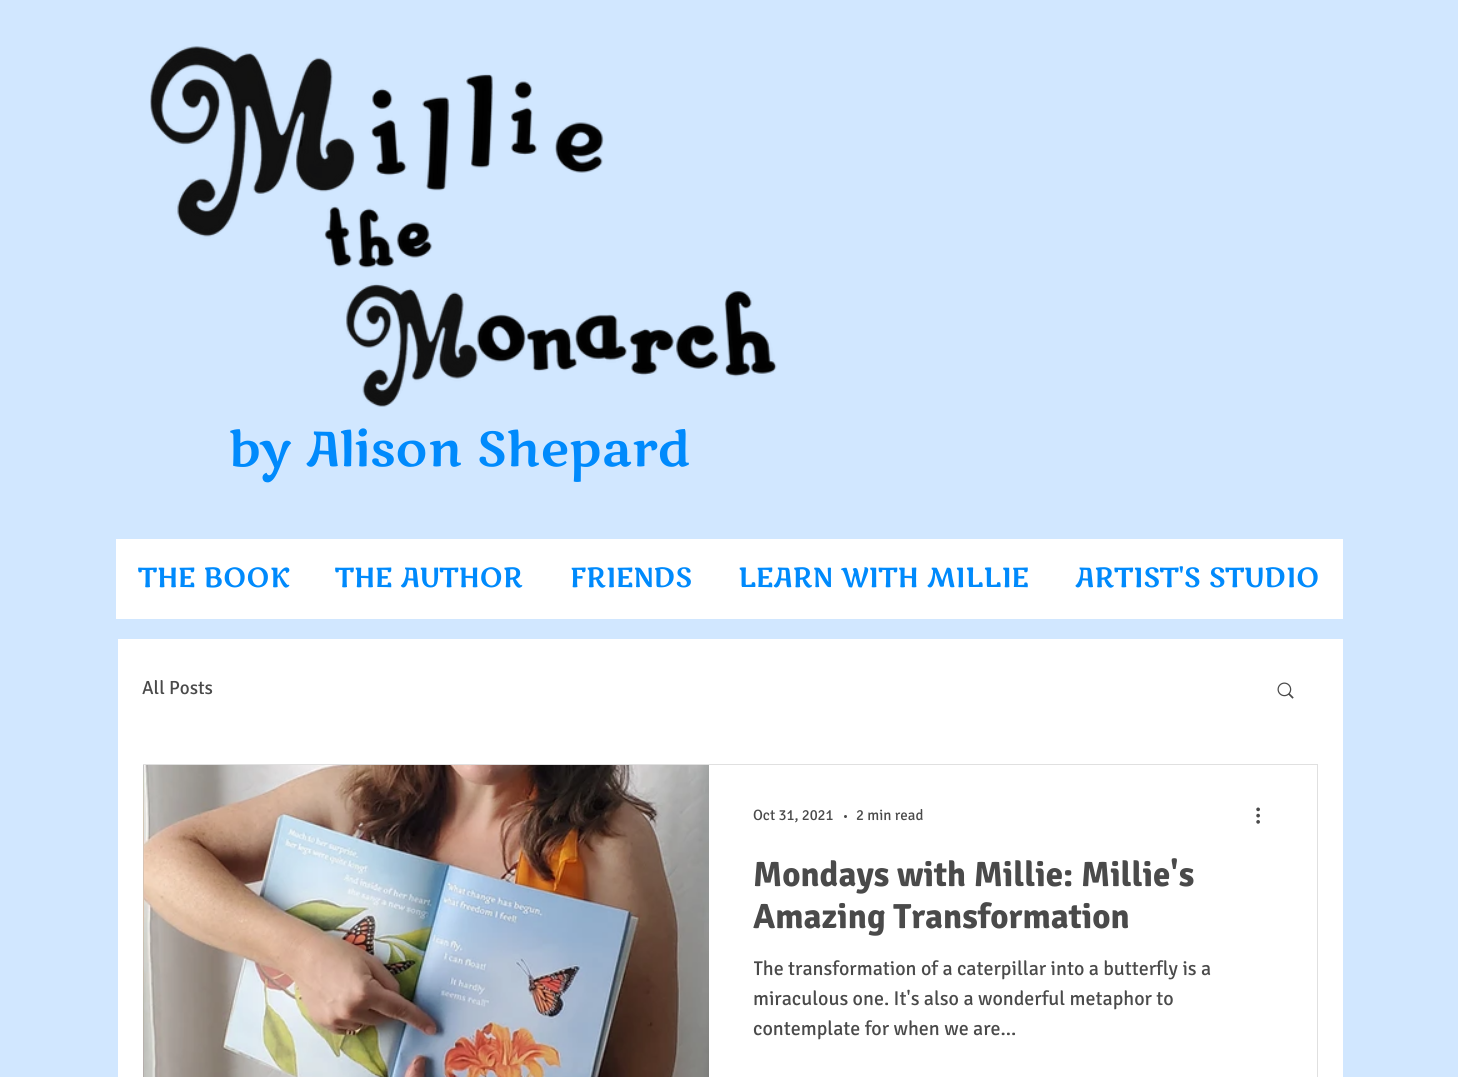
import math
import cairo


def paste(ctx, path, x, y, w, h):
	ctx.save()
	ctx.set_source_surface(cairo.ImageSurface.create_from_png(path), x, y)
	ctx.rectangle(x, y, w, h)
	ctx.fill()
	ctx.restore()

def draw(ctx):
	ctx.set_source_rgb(0.82, 0.906, 1)
	ctx.paint()
	paste(ctx, 'media/1.png', 150, 46, 627, 361)
	ctx.select_font_face('Marko One')
	ctx.set_font_size(48.75)
	ctx.set_source_rgb(0, 0.541, 0.988)
	ctx.move_to(229, 466)
	ctx.show_text('by Alison Shepard')
	ctx.set_source_rgb(1, 1, 1)
	ctx.rectangle(116, 539, 1227, 80)
	ctx.fill()
	ctx.set_font_size(27.5)
	ctx.set_source_rgb(0, 0.541, 0.988)
	for x, y, s in [
		(138, 587, 'THE BOOK'),
		(335, 587, 'THE AUTHOR'),
		(570, 587, 'FRIENDS'),
		(738, 587, 'LEARN WITH MILLIE'),
		(1075, 587, 'ARTIST\'S STUDIO'),
	]:
		ctx.move_to(x, y)
		ctx.show_text(s)
	ctx.set_source_rgb(1, 1, 1)
	ctx.rectangle(118, 639, 1225, 438)
	ctx.fill()
	ctx.select_font_face('Signika')
	ctx.set_font_size(19)
	ctx.set_source_rgb(0.29, 0.29, 0.29)
	ctx.move_to(142, 694)
	ctx.show_text('All Posts')
	paste(ctx, 'media/2.png', 1277, 682, 17, 17)
	ctx.rectangle(143.5, 764.5, 1174, 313)
	ctx.set_source_rgb(0.878, 0.878, 0.878)
	ctx.set_line_width(1)
	ctx.stroke()
	paste(ctx, 'media/3.png', 143, 765, 1, 312)
	paste(ctx, 'media/4.png', 144, 765, 565, 312)
	ctx.set_font_size(15)
	ctx.set_source_rgb(0.29, 0.29, 0.29)
	ctx.move_to(753, 820)
	ctx.show_text('Oct 31, 2021')
	ctx.new_path()
	ctx.arc(845.5, 816.5, 1.5, 0, 2 * math.pi)
	ctx.fill()
	ctx.move_to(856, 820)
	ctx.show_text('2 min read')
	paste(ctx, 'media/5.png', 1256, 807, 4, 17)
	ctx.select_font_face('Signika', cairo.FONT_SLANT_NORMAL, cairo.FONT_WEIGHT_BOLD)
	ctx.set_font_size(35)
	ctx.move_to(753, 886)
	ctx.show_text('Mondays with Millie: Millie\'s')
	ctx.move_to(753, 928)
	ctx.show_text('Amazing Transformation')
	ctx.save()
	ctx.rectangle(754, 954, 517, 90)
	ctx.clip()
	ctx.select_font_face('Signika')
	ctx.set_font_size(20)
	ctx.move_to(753, 975)
	ctx.show_text('The transformation of a caterpillar into a butterfly is a')
	ctx.restore()
	ctx.select_font_face('Signika')
	ctx.set_font_size(20)
	ctx.move_to(753, 1005)
	ctx.show_text('miraculous one. It\'s also a wonderful metaphor to')
	ctx.move_to(753, 1035)
	ctx.show_text('contemplate for when we are...')


surface = cairo.ImageSurface(cairo.FORMAT_RGB24, 1458, 1077)
ctx = cairo.Context(surface)
options = cairo.FontOptions()
options.set_hint_metrics(cairo.HINT_METRICS_OFF)
options.set_hint_style(cairo.HINT_STYLE_NONE)
ctx.set_font_options(options)
ctx.set_miter_limit(4)
draw(ctx)
surface.write_to_png('image.png')
